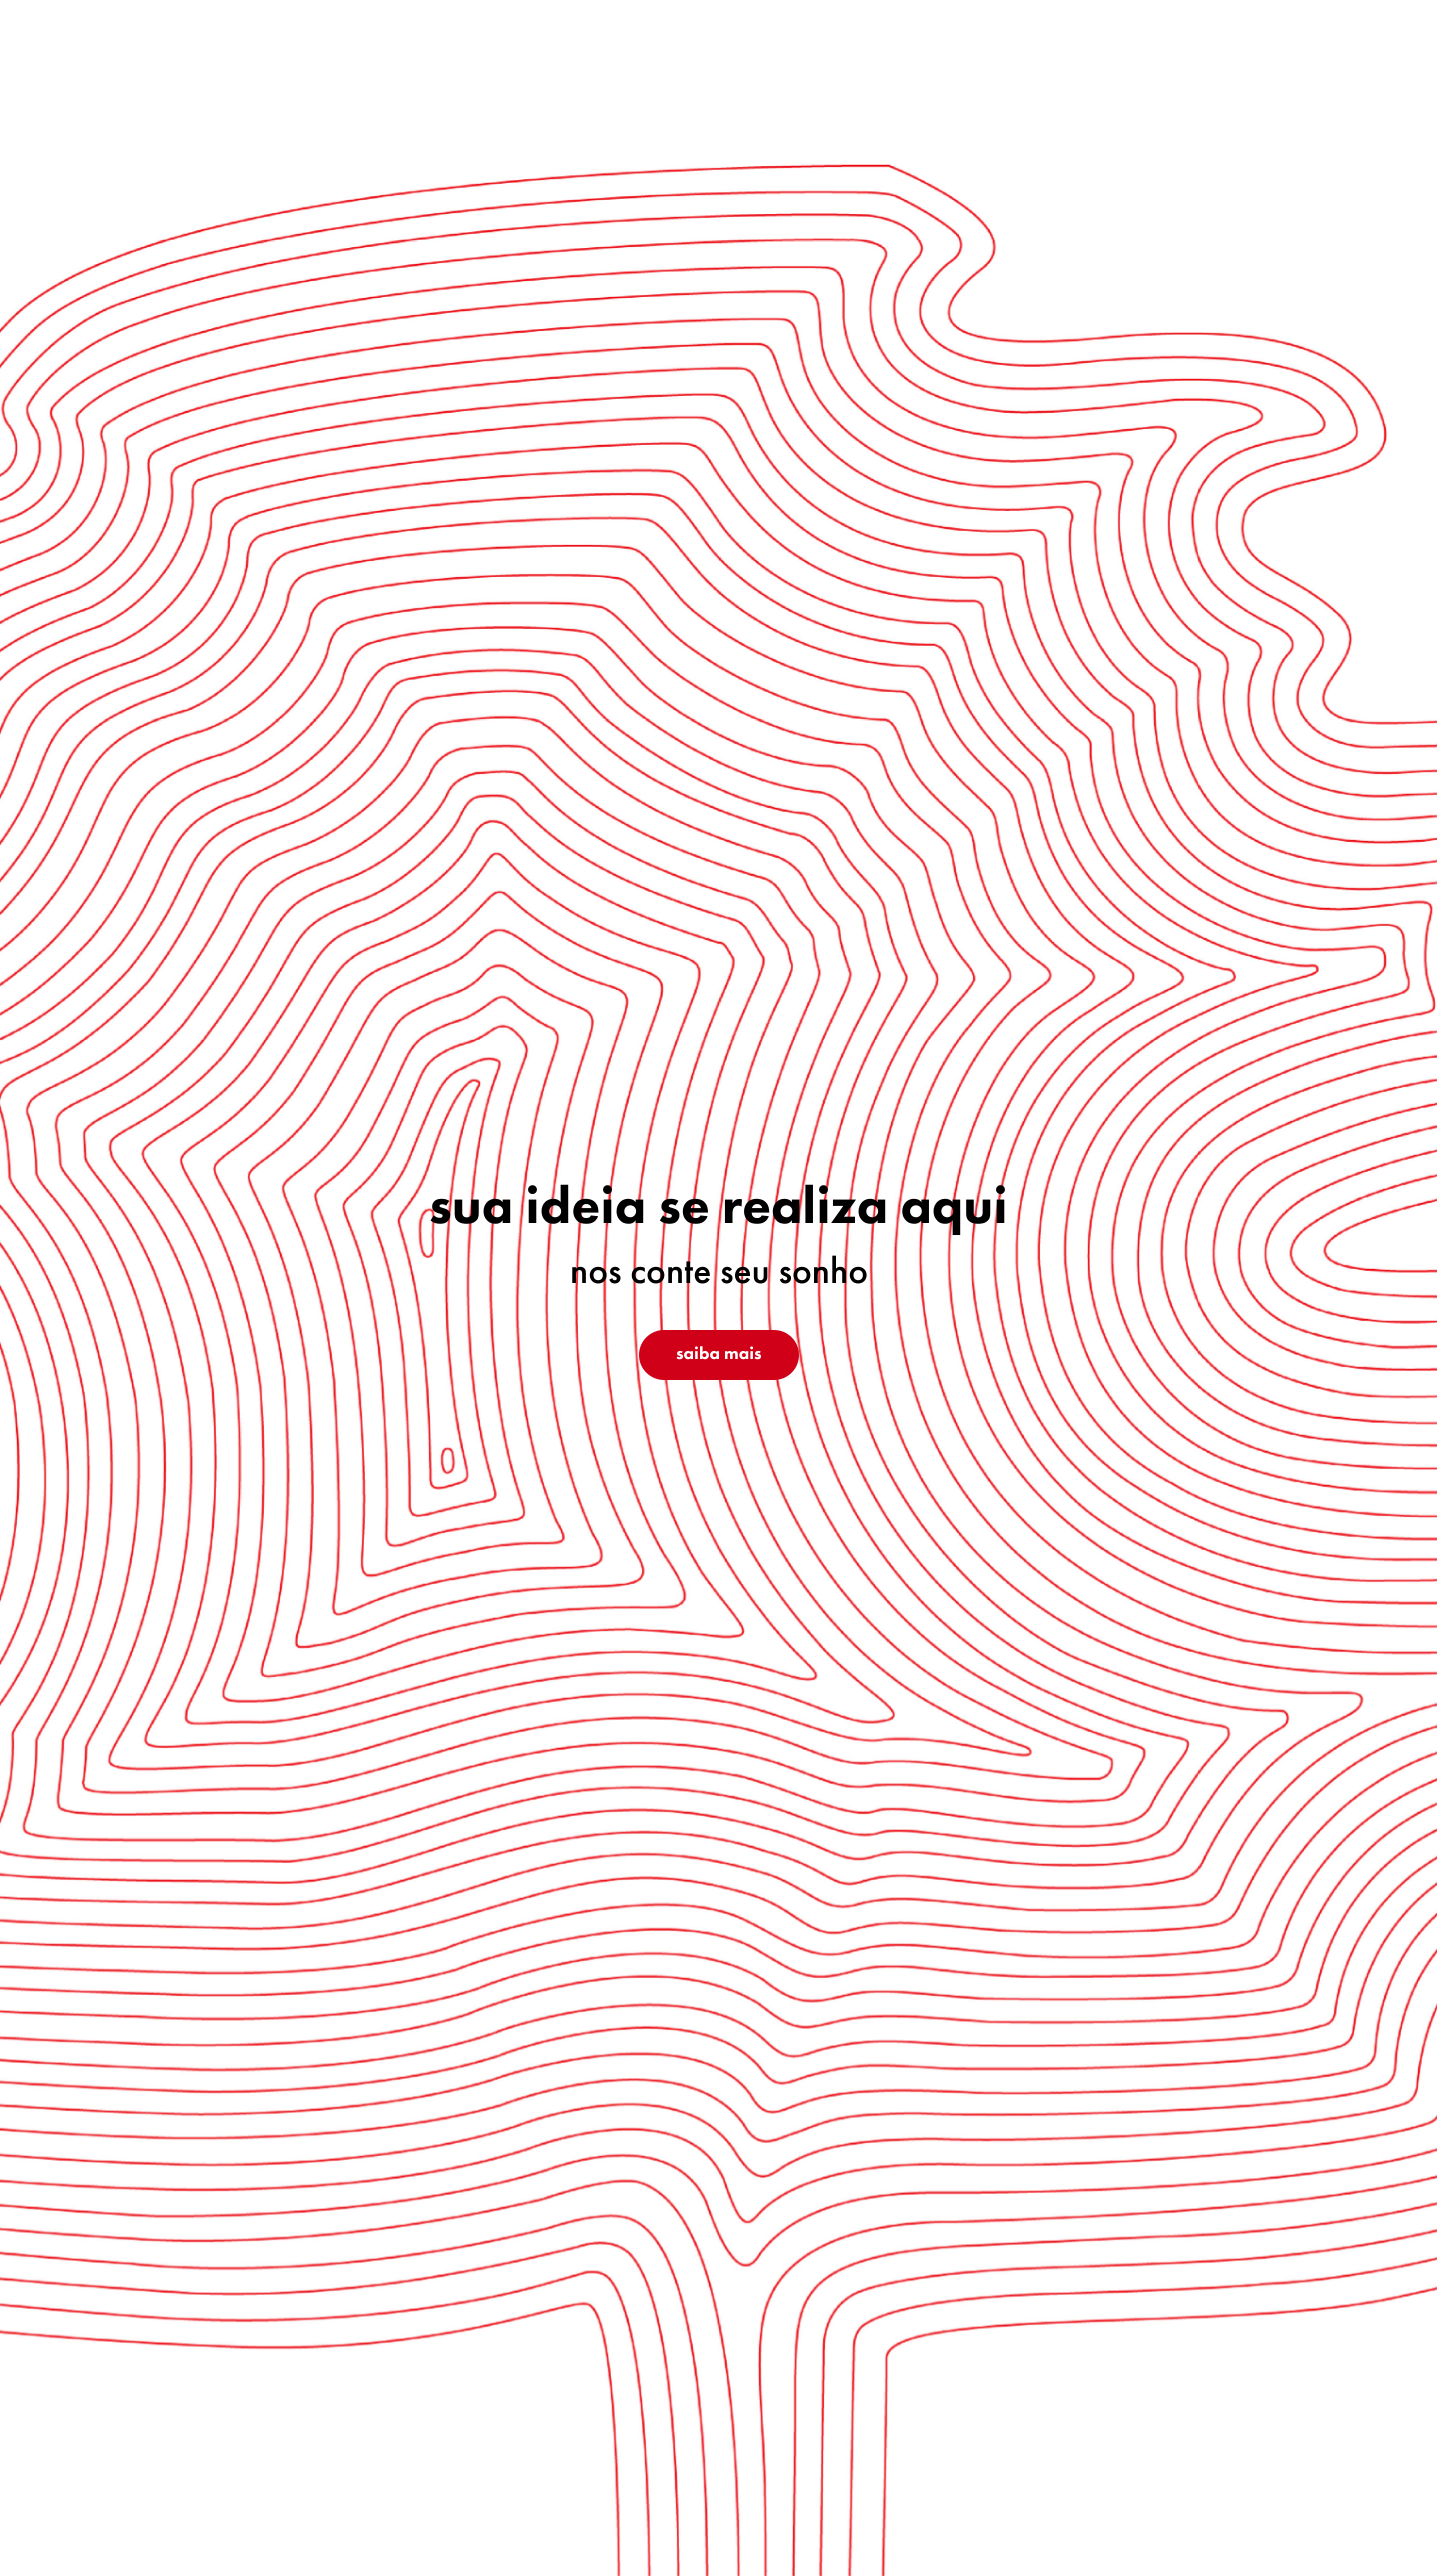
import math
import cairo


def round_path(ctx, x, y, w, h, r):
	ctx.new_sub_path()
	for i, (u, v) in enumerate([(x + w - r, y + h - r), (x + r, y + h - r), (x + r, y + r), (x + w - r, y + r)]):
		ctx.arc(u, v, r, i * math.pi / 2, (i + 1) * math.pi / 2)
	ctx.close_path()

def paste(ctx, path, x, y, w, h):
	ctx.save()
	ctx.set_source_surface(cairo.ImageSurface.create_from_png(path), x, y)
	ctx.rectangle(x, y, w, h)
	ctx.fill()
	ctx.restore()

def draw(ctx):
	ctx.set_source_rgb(1, 1, 1)
	ctx.paint()
	paste(ctx, 'media/1.png', 0, 162, 1437, 2414)
	ctx.select_font_face('Futura PT Black')
	ctx.set_font_size(52.5)
	ctx.set_source_rgb(0, 0, 0)
	ctx.move_to(429, 1223)
	ctx.show_text('sua ideia se realiza aqui')
	ctx.select_font_face('Futura PT Medium')
	ctx.set_font_size(37.5)
	ctx.move_to(570, 1283)
	ctx.show_text('nos conte seu sonho')
	ctx.set_source_rgb(0.82, 0, 0.098)
	round_path(ctx, 639, 1330, 160, 50, 25)
	ctx.fill()
	ctx.select_font_face('Futura PT Black')
	ctx.set_font_size(17.5)
	ctx.set_source_rgb(1, 1, 1)
	ctx.move_to(676, 1359)
	ctx.show_text('saiba mais')


surface = cairo.ImageSurface(cairo.FORMAT_RGB24, 1437, 2576)
ctx = cairo.Context(surface)
options = cairo.FontOptions()
options.set_hint_metrics(cairo.HINT_METRICS_OFF)
options.set_hint_style(cairo.HINT_STYLE_NONE)
ctx.set_font_options(options)
ctx.set_miter_limit(4)
draw(ctx)
surface.write_to_png('image.png')
